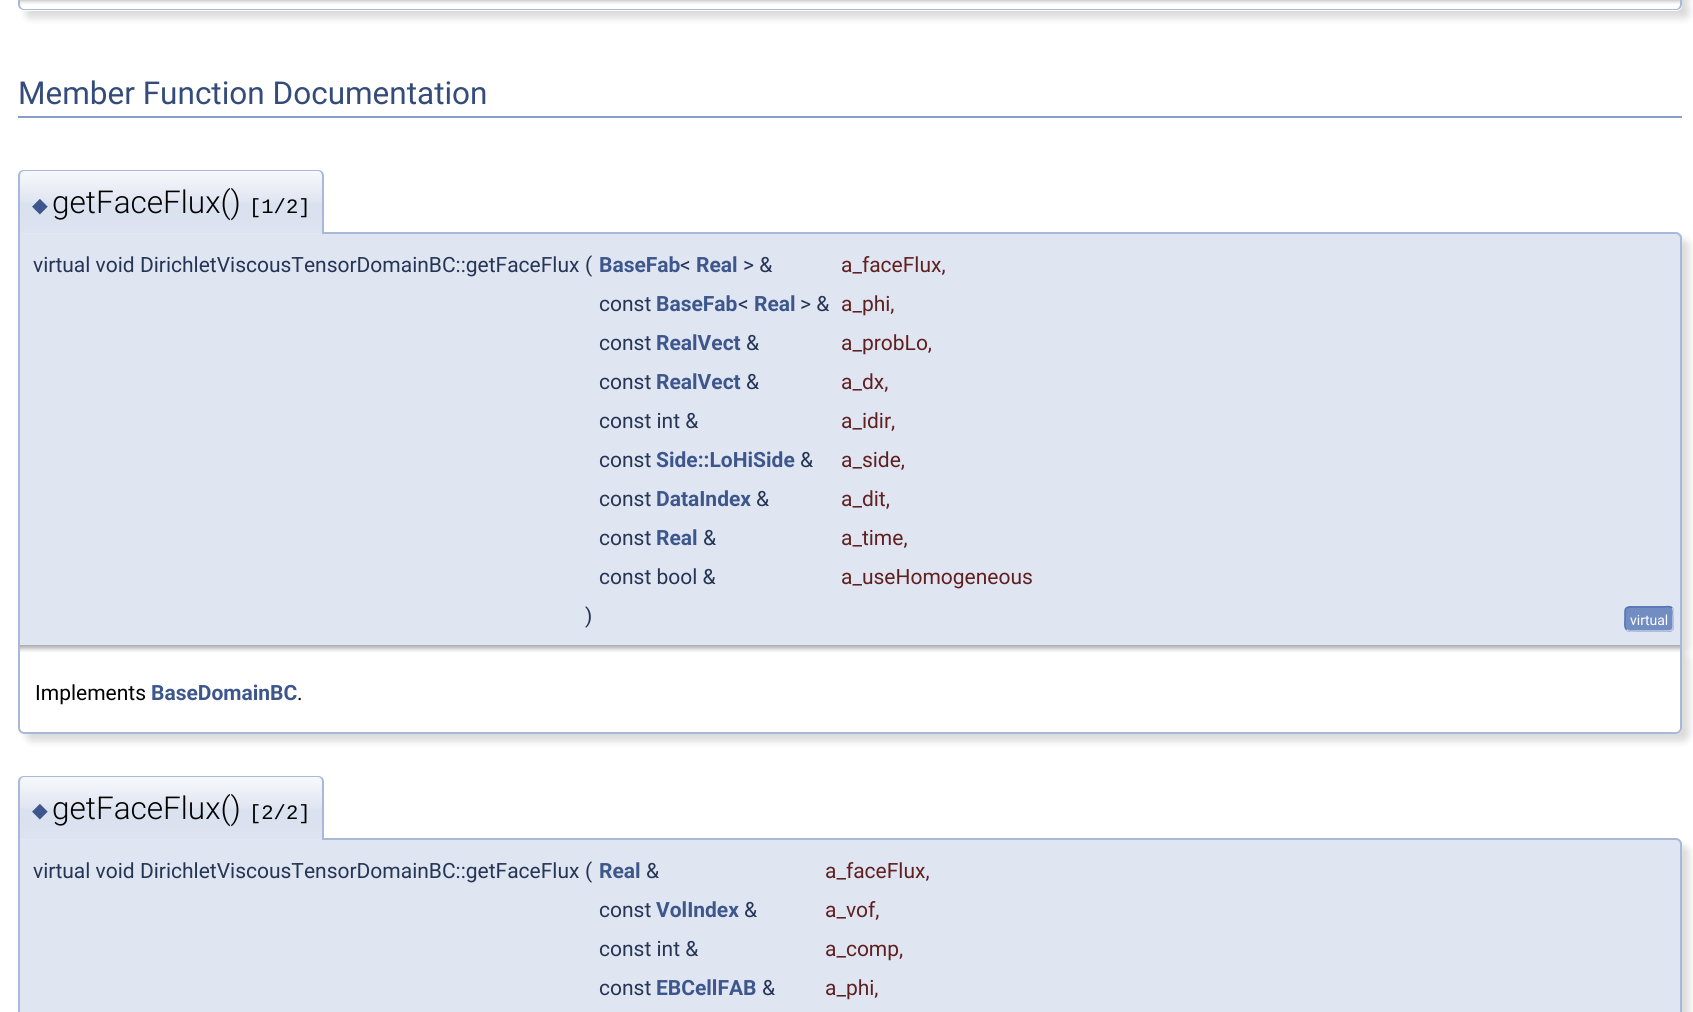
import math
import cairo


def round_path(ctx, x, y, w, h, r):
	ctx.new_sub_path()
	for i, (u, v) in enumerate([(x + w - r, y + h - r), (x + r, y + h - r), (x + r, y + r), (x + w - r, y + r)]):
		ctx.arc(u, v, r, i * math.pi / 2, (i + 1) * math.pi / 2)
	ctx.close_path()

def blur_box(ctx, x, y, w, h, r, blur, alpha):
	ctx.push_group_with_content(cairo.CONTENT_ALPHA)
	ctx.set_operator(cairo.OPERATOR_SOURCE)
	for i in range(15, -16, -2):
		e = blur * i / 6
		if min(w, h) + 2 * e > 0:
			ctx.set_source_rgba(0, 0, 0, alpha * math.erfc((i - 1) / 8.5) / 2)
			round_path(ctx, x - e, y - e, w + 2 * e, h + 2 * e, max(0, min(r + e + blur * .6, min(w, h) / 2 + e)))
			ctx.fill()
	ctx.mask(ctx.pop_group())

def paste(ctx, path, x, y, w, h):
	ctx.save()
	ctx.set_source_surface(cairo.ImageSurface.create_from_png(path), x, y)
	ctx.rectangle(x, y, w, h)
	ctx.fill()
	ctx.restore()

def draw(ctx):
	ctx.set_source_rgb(1, 1, 1)
	ctx.paint()
	ctx.set_source_rgb(0, 0, 0)
	blur_box(ctx, 26, 5, 1663, 13, 6, 4, 0.15)
	blur_box(ctx, 26, -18, 1663, 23, 6, 4, 0.15)
	ctx.set_source_rgb(1, 1, 1)
	ctx.new_path()
	ctx.move_to(18, -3)
	ctx.line_to(1682, -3)
	ctx.line_to(1682, 5)
	ctx.curve_to(1682, 8.5, 1679.5, 11, 1676, 11)
	ctx.line_to(24, 11)
	ctx.curve_to(20.5, 11, 18, 8.5, 18, 5)
	ctx.close_path()
	ctx.fill()
	paste(ctx, 'media/1.png', 20, 0, 1660, 4)
	ctx.set_source_rgb(0.659, 0.722, 0.851)
	ctx.set_fill_rule(cairo.FILL_RULE_EVEN_ODD)
	ctx.new_path()
	ctx.move_to(18, -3)
	ctx.line_to(1682, -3)
	ctx.line_to(1682, 4)
	ctx.curve_to(1682, 8, 1679, 10, 1676, 10)
	ctx.line_to(24, 10)
	ctx.curve_to(21, 10, 18, 8, 18, 4)
	ctx.close_path()
	ctx.move_to(20, -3)
	ctx.line_to(1680, -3)
	ctx.line_to(1680, 4)
	ctx.curve_to(1680, 7, 1678, 9, 1676, 9)
	ctx.line_to(24, 9)
	ctx.curve_to(22, 9, 20, 7, 20, 4)
	ctx.close_path()
	ctx.fill()
	ctx.set_source_rgb(0.529, 0.62, 0.796)
	ctx.rectangle(18, 116, 1664, 2)
	ctx.fill()
	ctx.select_font_face('Roboto')
	ctx.set_font_size(31.5)
	ctx.set_source_rgb(0.208, 0.298, 0.482)
	ctx.move_to(18, 104)
	ctx.show_text('Member Function Documentation')
	ctx.set_source_rgb(0, 0, 0)
	blur_box(ctx, 26, 240, 1663, 413, 6, 4, 0.15)
	ctx.set_source_rgb(0.875, 0.898, 0.945)
	ctx.new_path()
	ctx.move_to(18, 233)
	ctx.line_to(1676, 233)
	ctx.curve_to(1679.5, 233, 1682, 235.5, 1682, 239)
	ctx.line_to(1682, 645)
	ctx.line_to(18, 645)
	ctx.close_path()
	ctx.fill()
	ctx.set_source_rgb(0.659, 0.722, 0.851)
	ctx.new_path()
	ctx.move_to(18, 232)
	ctx.line_to(1676, 232)
	ctx.curve_to(1679, 232, 1682, 235, 1682, 238)
	ctx.line_to(1682, 645)
	ctx.line_to(18, 645)
	ctx.close_path()
	ctx.move_to(20, 234)
	ctx.line_to(1676, 234)
	ctx.curve_to(1678, 234, 1680, 236, 1680, 238)
	ctx.line_to(1680, 645)
	ctx.line_to(20, 645)
	ctx.close_path()
	ctx.fill()
	ctx.set_source_rgb(0.886, 0.91, 0.949)
	ctx.new_path()
	ctx.move_to(24, 170)
	ctx.line_to(318, 170)
	ctx.curve_to(321.5, 170, 324, 172.5, 324, 176)
	ctx.line_to(324, 234)
	ctx.line_to(18, 234)
	ctx.line_to(18, 176)
	ctx.curve_to(18, 172.5, 20.5, 170, 24, 170)
	ctx.close_path()
	ctx.fill()
	paste(ctx, 'media/2.png', 18, 171, 306, 62)
	ctx.set_source_rgb(0.659, 0.722, 0.851)
	ctx.new_path()
	ctx.move_to(24, 170)
	ctx.line_to(318, 170)
	ctx.curve_to(321, 170, 324, 172, 324, 176)
	ctx.line_to(324, 234)
	ctx.line_to(18, 234)
	ctx.line_to(18, 176)
	ctx.curve_to(18, 172, 21, 170, 24, 170)
	ctx.close_path()
	ctx.move_to(24, 171)
	ctx.line_to(318, 171)
	ctx.curve_to(320, 171, 322, 173, 322, 176)
	ctx.line_to(322, 234)
	ctx.line_to(20, 234)
	ctx.line_to(20, 176)
	ctx.curve_to(20, 173, 22, 171, 24, 171)
	ctx.close_path()
	ctx.fill()
	ctx.select_font_face('DejaVu Sans')
	ctx.set_font_size(20.5)
	ctx.set_source_rgb(0.239, 0.341, 0.549)
	ctx.move_to(32, 212)
	ctx.show_text('◆')
	ctx.select_font_face('Roboto Light')
	ctx.set_font_size(31.5)
	ctx.set_source_rgb(0, 0, 0)
	ctx.move_to(52, 213)
	ctx.show_text('getFaceFlux()')
	ctx.select_font_face('Liberation Mono')
	ctx.set_font_size(20.5)
	ctx.move_to(249, 213)
	ctx.show_text('[1/2]')
	ctx.select_font_face('Roboto')
	ctx.set_font_size(21)
	ctx.set_source_rgb(0.145, 0.208, 0.333)
	ctx.move_to(33, 272)
	ctx.show_text('virtual void DirichletViscousTensorDomainBC::getFaceFlux')
	ctx.move_to(585, 272)
	ctx.show_text('(')
	ctx.select_font_face('Roboto', cairo.FONT_SLANT_NORMAL, cairo.FONT_WEIGHT_BOLD)
	ctx.set_source_rgb(0.239, 0.341, 0.549)
	ctx.move_to(599, 272)
	ctx.show_text('BaseFab')
	ctx.select_font_face('Roboto')
	ctx.set_source_rgb(0.145, 0.208, 0.333)
	ctx.move_to(680, 272)
	ctx.show_text('<')
	ctx.select_font_face('Roboto', cairo.FONT_SLANT_NORMAL, cairo.FONT_WEIGHT_BOLD)
	ctx.set_source_rgb(0.239, 0.341, 0.549)
	ctx.move_to(696, 272)
	ctx.show_text('Real')
	ctx.select_font_face('Roboto')
	ctx.set_source_rgb(0.145, 0.208, 0.333)
	ctx.move_to(743, 272)
	ctx.show_text('> &')
	ctx.set_source_rgb(0.376, 0.125, 0.125)
	ctx.move_to(841, 272)
	ctx.show_text('a_faceFlux,')
	ctx.set_source_rgb(0.145, 0.208, 0.333)
	ctx.move_to(599, 311)
	ctx.show_text('const')
	ctx.select_font_face('Roboto', cairo.FONT_SLANT_NORMAL, cairo.FONT_WEIGHT_BOLD)
	ctx.set_source_rgb(0.239, 0.341, 0.549)
	ctx.move_to(656, 311)
	ctx.show_text('BaseFab')
	ctx.select_font_face('Roboto')
	ctx.set_source_rgb(0.145, 0.208, 0.333)
	ctx.move_to(738, 311)
	ctx.show_text('<')
	ctx.select_font_face('Roboto', cairo.FONT_SLANT_NORMAL, cairo.FONT_WEIGHT_BOLD)
	ctx.set_source_rgb(0.239, 0.341, 0.549)
	ctx.move_to(754, 311)
	ctx.show_text('Real')
	ctx.select_font_face('Roboto')
	ctx.set_source_rgb(0.145, 0.208, 0.333)
	ctx.move_to(800, 311)
	ctx.show_text('> &')
	ctx.set_source_rgb(0.376, 0.125, 0.125)
	ctx.move_to(841, 311)
	ctx.show_text('a_phi,')
	ctx.set_source_rgb(0.145, 0.208, 0.333)
	ctx.move_to(599, 350)
	ctx.show_text('const')
	ctx.select_font_face('Roboto', cairo.FONT_SLANT_NORMAL, cairo.FONT_WEIGHT_BOLD)
	ctx.set_source_rgb(0.239, 0.341, 0.549)
	ctx.move_to(656, 350)
	ctx.show_text('RealVect')
	ctx.select_font_face('Roboto')
	ctx.set_source_rgb(0.145, 0.208, 0.333)
	ctx.move_to(746, 350)
	ctx.show_text('&')
	ctx.set_source_rgb(0.376, 0.125, 0.125)
	ctx.move_to(841, 350)
	ctx.show_text('a_probLo,')
	ctx.set_source_rgb(0.145, 0.208, 0.333)
	ctx.move_to(599, 389)
	ctx.show_text('const')
	ctx.select_font_face('Roboto', cairo.FONT_SLANT_NORMAL, cairo.FONT_WEIGHT_BOLD)
	ctx.set_source_rgb(0.239, 0.341, 0.549)
	ctx.move_to(656, 389)
	ctx.show_text('RealVect')
	ctx.select_font_face('Roboto')
	ctx.set_source_rgb(0.145, 0.208, 0.333)
	ctx.move_to(746, 389)
	ctx.show_text('&')
	ctx.set_source_rgb(0.376, 0.125, 0.125)
	ctx.move_to(841, 389)
	ctx.show_text('a_dx,')
	ctx.set_source_rgb(0.145, 0.208, 0.333)
	ctx.move_to(599, 428)
	ctx.show_text('const int &')
	ctx.set_source_rgb(0.376, 0.125, 0.125)
	ctx.move_to(841, 428)
	ctx.show_text('a_idir,')
	ctx.set_source_rgb(0.145, 0.208, 0.333)
	ctx.move_to(599, 467)
	ctx.show_text('const')
	ctx.select_font_face('Roboto', cairo.FONT_SLANT_NORMAL, cairo.FONT_WEIGHT_BOLD)
	ctx.set_source_rgb(0.239, 0.341, 0.549)
	ctx.move_to(656, 467)
	ctx.show_text('Side::LoHiSide')
	ctx.select_font_face('Roboto')
	ctx.set_source_rgb(0.145, 0.208, 0.333)
	ctx.move_to(800, 467)
	ctx.show_text('&')
	ctx.set_source_rgb(0.376, 0.125, 0.125)
	ctx.move_to(841, 467)
	ctx.show_text('a_side,')
	ctx.set_source_rgb(0.145, 0.208, 0.333)
	ctx.move_to(599, 506)
	ctx.show_text('const')
	ctx.select_font_face('Roboto', cairo.FONT_SLANT_NORMAL, cairo.FONT_WEIGHT_BOLD)
	ctx.set_source_rgb(0.239, 0.341, 0.549)
	ctx.move_to(656, 506)
	ctx.show_text('DataIndex')
	ctx.select_font_face('Roboto')
	ctx.set_source_rgb(0.145, 0.208, 0.333)
	ctx.move_to(756, 506)
	ctx.show_text('&')
	ctx.set_source_rgb(0.376, 0.125, 0.125)
	ctx.move_to(841, 506)
	ctx.show_text('a_dit,')
	ctx.set_source_rgb(0.145, 0.208, 0.333)
	ctx.move_to(599, 545)
	ctx.show_text('const')
	ctx.select_font_face('Roboto', cairo.FONT_SLANT_NORMAL, cairo.FONT_WEIGHT_BOLD)
	ctx.set_source_rgb(0.239, 0.341, 0.549)
	ctx.move_to(656, 545)
	ctx.show_text('Real')
	ctx.select_font_face('Roboto')
	ctx.set_source_rgb(0.145, 0.208, 0.333)
	ctx.move_to(703, 545)
	ctx.show_text('&')
	ctx.set_source_rgb(0.376, 0.125, 0.125)
	ctx.move_to(841, 545)
	ctx.show_text('a_time,')
	ctx.set_source_rgb(0.145, 0.208, 0.333)
	ctx.move_to(599, 584)
	ctx.show_text('const bool &')
	ctx.set_source_rgb(0.376, 0.125, 0.125)
	ctx.move_to(841, 584)
	ctx.show_text('a_useHomogeneous')
	ctx.set_source_rgb(0.145, 0.208, 0.333)
	ctx.move_to(585, 623)
	ctx.show_text(')')
	ctx.set_source_rgb(0.447, 0.553, 0.757)
	round_path(ctx, 1625, 606, 49, 26, 5)
	ctx.fill()
	ctx.new_path()
	ctx.move_to(1672, 608)
	ctx.curve_to(1674.5, 610, 1673, 616, 1673, 619)
	ctx.curve_to(1673, 630.5, 1675, 631, 1663, 631)
	ctx.line_to(1636, 631)
	ctx.curve_to(1634, 631, 1628.5, 632, 1626.5, 629.5)
	ctx.set_source_rgb(0.769, 0.812, 0.898)
	ctx.set_line_width(1.5)
	ctx.stroke()
	ctx.new_path()
	ctx.move_to(1626.5, 629.5)
	ctx.curve_to(1624, 627.5, 1625, 621.5, 1625, 619)
	ctx.curve_to(1625, 607, 1623.5, 607, 1636, 607)
	ctx.line_to(1663, 607)
	ctx.curve_to(1664.5, 607, 1670, 605.5, 1672, 608)
	ctx.set_source_rgb(0.325, 0.451, 0.706)
	ctx.stroke()
	ctx.set_font_size(14)
	ctx.set_source_rgb(1, 1, 1)
	ctx.move_to(1630, 625)
	ctx.show_text('virtual')
	ctx.set_source_rgb(0, 0, 0)
	blur_box(ctx, 26, 653, 1663, 88, 6, 4, 0.15)
	ctx.set_source_rgb(1, 1, 1)
	ctx.new_path()
	ctx.move_to(18, 645)
	ctx.line_to(1682, 645)
	ctx.line_to(1682, 728)
	ctx.curve_to(1682, 731.5, 1679.5, 734, 1676, 734)
	ctx.line_to(24, 734)
	ctx.curve_to(20.5, 734, 18, 731.5, 18, 728)
	ctx.close_path()
	ctx.fill()
	paste(ctx, 'media/3.png', 20, 645, 1660, 7)
	ctx.set_source_rgb(0.659, 0.722, 0.851)
	ctx.new_path()
	ctx.move_to(18, 645)
	ctx.line_to(1682, 645)
	ctx.line_to(1682, 728)
	ctx.curve_to(1682, 731, 1679, 734, 1676, 734)
	ctx.line_to(24, 734)
	ctx.curve_to(21, 734, 18, 731, 18, 728)
	ctx.close_path()
	ctx.move_to(20, 645)
	ctx.line_to(1680, 645)
	ctx.line_to(1680, 728)
	ctx.curve_to(1680, 730, 1678, 732, 1676, 732)
	ctx.line_to(24, 732)
	ctx.curve_to(22, 732, 20, 730, 20, 728)
	ctx.close_path()
	ctx.fill()
	ctx.set_font_size(21)
	ctx.set_source_rgb(0, 0, 0)
	ctx.move_to(35, 700)
	ctx.show_text('Implements')
	ctx.select_font_face('Roboto', cairo.FONT_SLANT_NORMAL, cairo.FONT_WEIGHT_BOLD)
	ctx.set_source_rgb(0.239, 0.341, 0.549)
	ctx.move_to(151, 700)
	ctx.show_text('BaseDomainBC')
	ctx.select_font_face('Roboto')
	ctx.set_source_rgb(0, 0, 0)
	ctx.move_to(297, 700)
	ctx.show_text('.')
	ctx.set_source_rgb(0, 0, 0)
	blur_box(ctx, 26, 846, 1663, 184, 6, 4, 0.15)
	ctx.set_source_rgb(0.875, 0.898, 0.945)
	ctx.new_path()
	ctx.move_to(18, 839)
	ctx.line_to(1676, 839)
	ctx.curve_to(1679.5, 839, 1682, 841.5, 1682, 845)
	ctx.line_to(1682, 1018)
	ctx.line_to(18, 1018)
	ctx.close_path()
	ctx.fill()
	ctx.set_source_rgb(0.659, 0.722, 0.851)
	ctx.new_path()
	ctx.move_to(18, 838)
	ctx.line_to(1676, 838)
	ctx.curve_to(1679, 838, 1682, 841, 1682, 844)
	ctx.line_to(1682, 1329)
	ctx.line_to(18, 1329)
	ctx.close_path()
	ctx.move_to(20, 840)
	ctx.line_to(1676, 840)
	ctx.curve_to(1678, 840, 1680, 842, 1680, 844)
	ctx.line_to(1680, 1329)
	ctx.line_to(20, 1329)
	ctx.close_path()
	ctx.fill()
	ctx.set_source_rgb(0.886, 0.91, 0.949)
	ctx.new_path()
	ctx.move_to(24, 776)
	ctx.line_to(318, 776)
	ctx.curve_to(321.5, 776, 324, 778.5, 324, 782)
	ctx.line_to(324, 840)
	ctx.line_to(18, 840)
	ctx.line_to(18, 782)
	ctx.curve_to(18, 778.5, 20.5, 776, 24, 776)
	ctx.close_path()
	ctx.fill()
	paste(ctx, 'media/4.png', 18, 777, 306, 62)
	ctx.set_source_rgb(0.659, 0.722, 0.851)
	ctx.new_path()
	ctx.move_to(24, 776)
	ctx.line_to(318, 776)
	ctx.curve_to(321, 776, 324, 778, 324, 782)
	ctx.line_to(324, 840)
	ctx.line_to(18, 840)
	ctx.line_to(18, 782)
	ctx.curve_to(18, 778, 21, 776, 24, 776)
	ctx.close_path()
	ctx.move_to(24, 777)
	ctx.line_to(318, 777)
	ctx.curve_to(320, 777, 322, 779, 322, 782)
	ctx.line_to(322, 840)
	ctx.line_to(20, 840)
	ctx.line_to(20, 782)
	ctx.curve_to(20, 779, 22, 777, 24, 777)
	ctx.close_path()
	ctx.fill()
	ctx.select_font_face('DejaVu Sans')
	ctx.set_font_size(20.5)
	ctx.set_source_rgb(0.239, 0.341, 0.549)
	ctx.move_to(32, 817)
	ctx.show_text('◆')
	ctx.select_font_face('Roboto Light')
	ctx.set_font_size(31.5)
	ctx.set_source_rgb(0, 0, 0)
	ctx.move_to(52, 819)
	ctx.show_text('getFaceFlux()')
	ctx.select_font_face('Liberation Mono')
	ctx.set_font_size(20.5)
	ctx.move_to(249, 819)
	ctx.show_text('[2/2]')
	ctx.select_font_face('Roboto')
	ctx.set_font_size(21)
	ctx.set_source_rgb(0.145, 0.208, 0.333)
	ctx.move_to(33, 878)
	ctx.show_text('virtual void DirichletViscousTensorDomainBC::getFaceFlux')
	ctx.move_to(585, 878)
	ctx.show_text('(')
	ctx.select_font_face('Roboto', cairo.FONT_SLANT_NORMAL, cairo.FONT_WEIGHT_BOLD)
	ctx.set_source_rgb(0.239, 0.341, 0.549)
	ctx.move_to(599, 878)
	ctx.show_text('Real')
	ctx.select_font_face('Roboto')
	ctx.set_source_rgb(0.145, 0.208, 0.333)
	ctx.move_to(646, 878)
	ctx.show_text('&')
	ctx.set_source_rgb(0.376, 0.125, 0.125)
	ctx.move_to(825, 878)
	ctx.show_text('a_faceFlux,')
	ctx.set_source_rgb(0.145, 0.208, 0.333)
	ctx.move_to(599, 917)
	ctx.show_text('const')
	ctx.select_font_face('Roboto', cairo.FONT_SLANT_NORMAL, cairo.FONT_WEIGHT_BOLD)
	ctx.set_source_rgb(0.239, 0.341, 0.549)
	ctx.move_to(656, 917)
	ctx.show_text('VolIndex')
	ctx.select_font_face('Roboto')
	ctx.set_source_rgb(0.145, 0.208, 0.333)
	ctx.move_to(744, 917)
	ctx.show_text('&')
	ctx.set_source_rgb(0.376, 0.125, 0.125)
	ctx.move_to(825, 917)
	ctx.show_text('a_vof,')
	ctx.set_source_rgb(0.145, 0.208, 0.333)
	ctx.move_to(599, 956)
	ctx.show_text('const int &')
	ctx.set_source_rgb(0.376, 0.125, 0.125)
	ctx.move_to(825, 956)
	ctx.show_text('a_comp,')
	ctx.set_source_rgb(0.145, 0.208, 0.333)
	ctx.move_to(599, 995)
	ctx.show_text('const')
	ctx.select_font_face('Roboto', cairo.FONT_SLANT_NORMAL, cairo.FONT_WEIGHT_BOLD)
	ctx.set_source_rgb(0.239, 0.341, 0.549)
	ctx.move_to(656, 995)
	ctx.show_text('EBCellFAB')
	ctx.select_font_face('Roboto')
	ctx.set_source_rgb(0.145, 0.208, 0.333)
	ctx.move_to(762, 995)
	ctx.show_text('&')
	ctx.set_source_rgb(0.376, 0.125, 0.125)
	ctx.move_to(825, 995)
	ctx.show_text('a_phi,')


surface = cairo.ImageSurface(cairo.FORMAT_RGB24, 1693, 1012)
ctx = cairo.Context(surface)
options = cairo.FontOptions()
options.set_hint_metrics(cairo.HINT_METRICS_OFF)
options.set_hint_style(cairo.HINT_STYLE_NONE)
ctx.set_font_options(options)
ctx.set_miter_limit(4)
draw(ctx)
surface.write_to_png('image.png')
